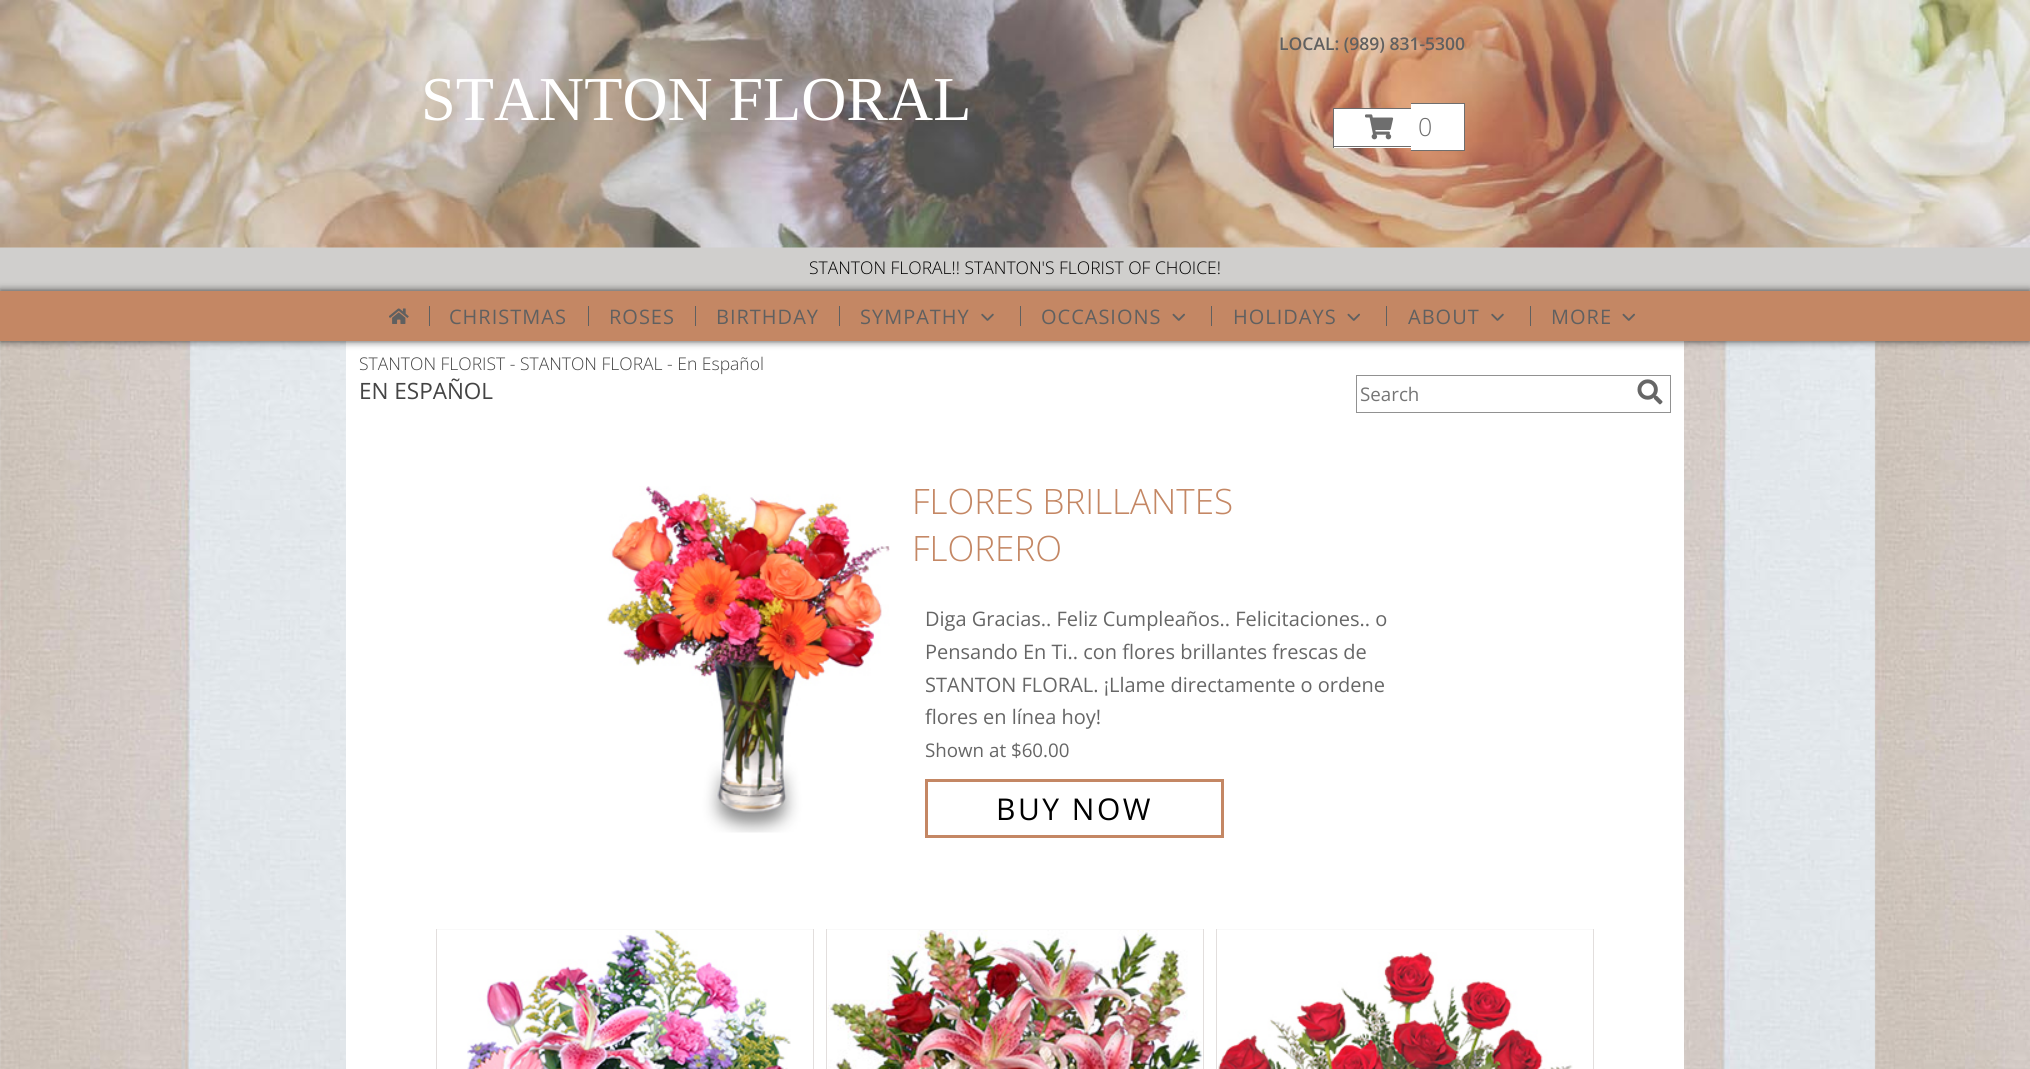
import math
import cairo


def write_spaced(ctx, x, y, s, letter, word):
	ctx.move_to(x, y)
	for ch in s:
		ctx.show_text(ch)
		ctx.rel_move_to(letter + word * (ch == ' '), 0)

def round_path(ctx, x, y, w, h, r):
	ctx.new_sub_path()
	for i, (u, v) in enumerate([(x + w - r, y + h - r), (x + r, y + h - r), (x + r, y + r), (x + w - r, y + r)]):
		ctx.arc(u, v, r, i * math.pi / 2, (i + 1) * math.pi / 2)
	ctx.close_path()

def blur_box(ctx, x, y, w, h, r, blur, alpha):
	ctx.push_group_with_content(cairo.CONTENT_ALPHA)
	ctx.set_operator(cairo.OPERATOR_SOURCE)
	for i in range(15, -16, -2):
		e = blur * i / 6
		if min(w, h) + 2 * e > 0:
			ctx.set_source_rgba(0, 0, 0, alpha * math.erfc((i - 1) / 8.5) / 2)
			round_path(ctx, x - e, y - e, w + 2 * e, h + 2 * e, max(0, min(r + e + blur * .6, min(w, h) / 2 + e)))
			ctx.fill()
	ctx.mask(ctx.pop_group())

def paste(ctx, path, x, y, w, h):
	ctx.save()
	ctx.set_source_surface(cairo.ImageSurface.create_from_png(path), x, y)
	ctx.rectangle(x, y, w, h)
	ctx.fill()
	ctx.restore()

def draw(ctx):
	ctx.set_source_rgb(1, 1, 1)
	ctx.paint()
	paste(ctx, 'media/1.png', 0, 341, 2030, 728)
	ctx.set_source_rgb(1, 1, 1)
	ctx.rectangle(346, 341, 1338, 728)
	ctx.fill()
	ctx.set_source_rgb(0.816, 0.812, 0.804)
	ctx.rectangle(0, 247, 2030, 44)
	ctx.fill()
	paste(ctx, 'media/2.png', 0, 0, 2030, 248)
	ctx.select_font_face('Liberation Serif')
	ctx.set_font_size(62.5)
	ctx.set_source_rgb(1, 1, 1)
	ctx.move_to(421, 120)
	ctx.show_text('STANTON FLORAL')
	ctx.select_font_face('Open Sans SemiBold')
	ctx.set_font_size(17.5)
	ctx.set_source_rgb(0.376, 0.376, 0.376)
	ctx.move_to(1279, 50)
	ctx.show_text('LOCAL: (989) 831-5300')
	ctx.set_source_rgb(1, 1, 1)
	ctx.rectangle(1334, 109, 77, 39)
	ctx.fill()
	ctx.set_source_rgb(0.431, 0.431, 0.431)
	ctx.rectangle(1333, 108, 78, 1)
	ctx.rectangle(1333, 146, 78, 1)
	ctx.rectangle(1333, 108, 1, 40)
	ctx.fill()
	ctx.set_source_rgb(1, 1, 1)
	ctx.rectangle(1411, 103, 8, 48)
	ctx.fill()
	ctx.set_source_rgb(0.431, 0.431, 0.431)
	ctx.rectangle(1411, 103, 54, 1)
	ctx.rectangle(1411, 150, 8, 1)
	ctx.fill()
	ctx.set_source_rgb(1, 1, 1)
	ctx.rectangle(1419, 104, 45, 46)
	ctx.fill()
	ctx.set_source_rgb(0.431, 0.431, 0.431)
	ctx.rectangle(1464, 103, 1, 48)
	ctx.rectangle(1419, 150, 46, 1)
	ctx.fill()
	paste(ctx, 'media/3.png', 1365, 114, 29, 26)
	ctx.select_font_face('Open Sans Light')
	ctx.set_font_size(25)
	ctx.move_to(1418, 136)
	ctx.show_text('0')
	ctx.set_font_size(17.5)
	ctx.set_source_rgb(0, 0, 0)
	ctx.move_to(809, 274)
	ctx.show_text('STANTON FLORAL!! STANTON\'S FLORIST OF CHOICE!')
	ctx.set_source_rgb(0, 0, 0)
	blur_box(ctx, 0, 291, 2030, 50, 0, 4, 0.75)
	ctx.set_source_rgb(0.769, 0.529, 0.392)
	ctx.rectangle(0, 291, 2030, 50)
	ctx.fill()
	paste(ctx, 'media/4.png', 389, 308, 20, 16)
	ctx.set_source_rgb(0.376, 0.376, 0.376)
	ctx.rectangle(429, 306, 1, 20)
	ctx.fill()
	ctx.select_font_face('Open Sans')
	ctx.set_font_size(20)
	write_spaced(ctx, 449, 324, 'CHRISTMAS', 1, 0)
	ctx.rectangle(588, 306, 1, 20)
	ctx.fill()
	write_spaced(ctx, 609, 324, 'ROSES', 1, 0)
	ctx.rectangle(695, 306, 1, 20)
	ctx.fill()
	write_spaced(ctx, 716, 324, 'BIRTHDAY', 1, 0)
	ctx.rectangle(839, 306, 1, 20)
	ctx.fill()
	write_spaced(ctx, 860, 324, 'SYMPATHY', 1, 0)
	paste(ctx, 'media/5.png', 981, 313, 13, 8)
	ctx.rectangle(1020, 306, 1, 20)
	ctx.fill()
	write_spaced(ctx, 1041, 324, 'OCCASIONS', 1, 0)
	paste(ctx, 'media/6.png', 1172, 313, 13, 8)
	ctx.rectangle(1211, 306, 1, 20)
	ctx.fill()
	write_spaced(ctx, 1233, 324, 'HOLIDAYS', 1, 0)
	paste(ctx, 'media/6.png', 1347, 313, 13, 8)
	ctx.rectangle(1386, 306, 1, 20)
	ctx.fill()
	write_spaced(ctx, 1408, 324, 'ABOUT', 1, 0)
	paste(ctx, 'media/5.png', 1491, 313, 13, 8)
	ctx.rectangle(1530, 306, 1, 20)
	ctx.fill()
	write_spaced(ctx, 1551, 324, 'MORE', 1, 0)
	paste(ctx, 'media/6.png', 1622, 313, 13, 8)
	ctx.select_font_face('Open Sans Light')
	ctx.set_font_size(17.5)
	ctx.set_source_rgb(0.267, 0.267, 0.267)
	ctx.move_to(359, 370)
	ctx.show_text('STANTON FLORIST - STANTON FLORAL - En Español')
	ctx.select_font_face('Open Sans')
	ctx.set_font_size(22.5)
	ctx.move_to(359, 399)
	ctx.show_text('EN ESPAÑOL')
	ctx.rectangle(1356.5, 375.5, 314, 37)
	ctx.set_source_rgb(0.569, 0.569, 0.569)
	ctx.set_line_width(1)
	ctx.stroke()
	ctx.set_font_size(18.75)
	ctx.set_source_rgb(0.459, 0.459, 0.459)
	ctx.move_to(1360, 401)
	ctx.show_text('Search')
	paste(ctx, 'media/7.png', 1637, 379, 26, 26)
	paste(ctx, 'media/8.png', 607, 486, 283, 347)
	ctx.select_font_face('Open Sans Light')
	ctx.set_font_size(35)
	ctx.set_source_rgb(0.769, 0.529, 0.392)
	ctx.move_to(912, 514)
	ctx.show_text('FLORES BRILLANTES')
	ctx.move_to(912, 561)
	ctx.show_text('FLORERO')
	ctx.select_font_face('Open Sans')
	ctx.set_font_size(20)
	ctx.set_source_rgb(0.4, 0.4, 0.4)
	for x, y, s in [
		(925, 626, 'Diga Gracias.. Feliz Cumpleaños.. Felicitaciones.. o'),
		(925, 659, 'Pensando En Ti.. con flores brillantes frescas de'),
		(925, 692, 'STANTON FLORAL. ¡Llame directamente o ordene'),
		(925, 724, 'flores en línea hoy!'),
	]:
		ctx.move_to(x, y)
		ctx.show_text(s)
	ctx.set_font_size(18.75)
	ctx.move_to(925, 757)
	ctx.show_text('Shown at $60.00')
	ctx.rectangle(926.5, 780.5, 296, 56)
	ctx.set_source_rgb(0.769, 0.529, 0.392)
	ctx.set_line_width(3)
	ctx.stroke()
	ctx.set_font_size(30)
	ctx.set_source_rgb(0, 0, 0)
	write_spaced(ctx, 996, 820, 'BUY NOW', 2.5, 0)
	ctx.set_source_rgb(0.976, 0.976, 0.976)
	ctx.rectangle(436, 929, 378, 1)
	ctx.fill()
	ctx.set_source_rgb(0.886, 0.871, 0.867)
	ctx.rectangle(813, 929, 1, 140)
	ctx.rectangle(436, 929, 1, 140)
	ctx.fill()
	paste(ctx, 'media/9.png', 467, 930, 324, 139)
	ctx.set_source_rgb(0.976, 0.976, 0.976)
	ctx.rectangle(826, 929, 378, 1)
	ctx.fill()
	ctx.set_source_rgb(0.886, 0.871, 0.867)
	ctx.rectangle(1203, 929, 1, 140)
	ctx.rectangle(826, 929, 1, 140)
	ctx.fill()
	paste(ctx, 'media/10.png', 827, 930, 376, 139)
	ctx.set_source_rgb(0.976, 0.976, 0.976)
	ctx.rectangle(1216, 929, 378, 1)
	ctx.fill()
	ctx.set_source_rgb(0.886, 0.871, 0.867)
	ctx.rectangle(1593, 929, 1, 140)
	ctx.rectangle(1216, 929, 1, 140)
	ctx.fill()
	paste(ctx, 'media/11.png', 1218, 952, 355, 117)


surface = cairo.ImageSurface(cairo.FORMAT_RGB24, 2030, 1069)
ctx = cairo.Context(surface)
options = cairo.FontOptions()
options.set_hint_metrics(cairo.HINT_METRICS_OFF)
options.set_hint_style(cairo.HINT_STYLE_NONE)
ctx.set_font_options(options)
ctx.set_miter_limit(4)
draw(ctx)
surface.write_to_png('image.png')
